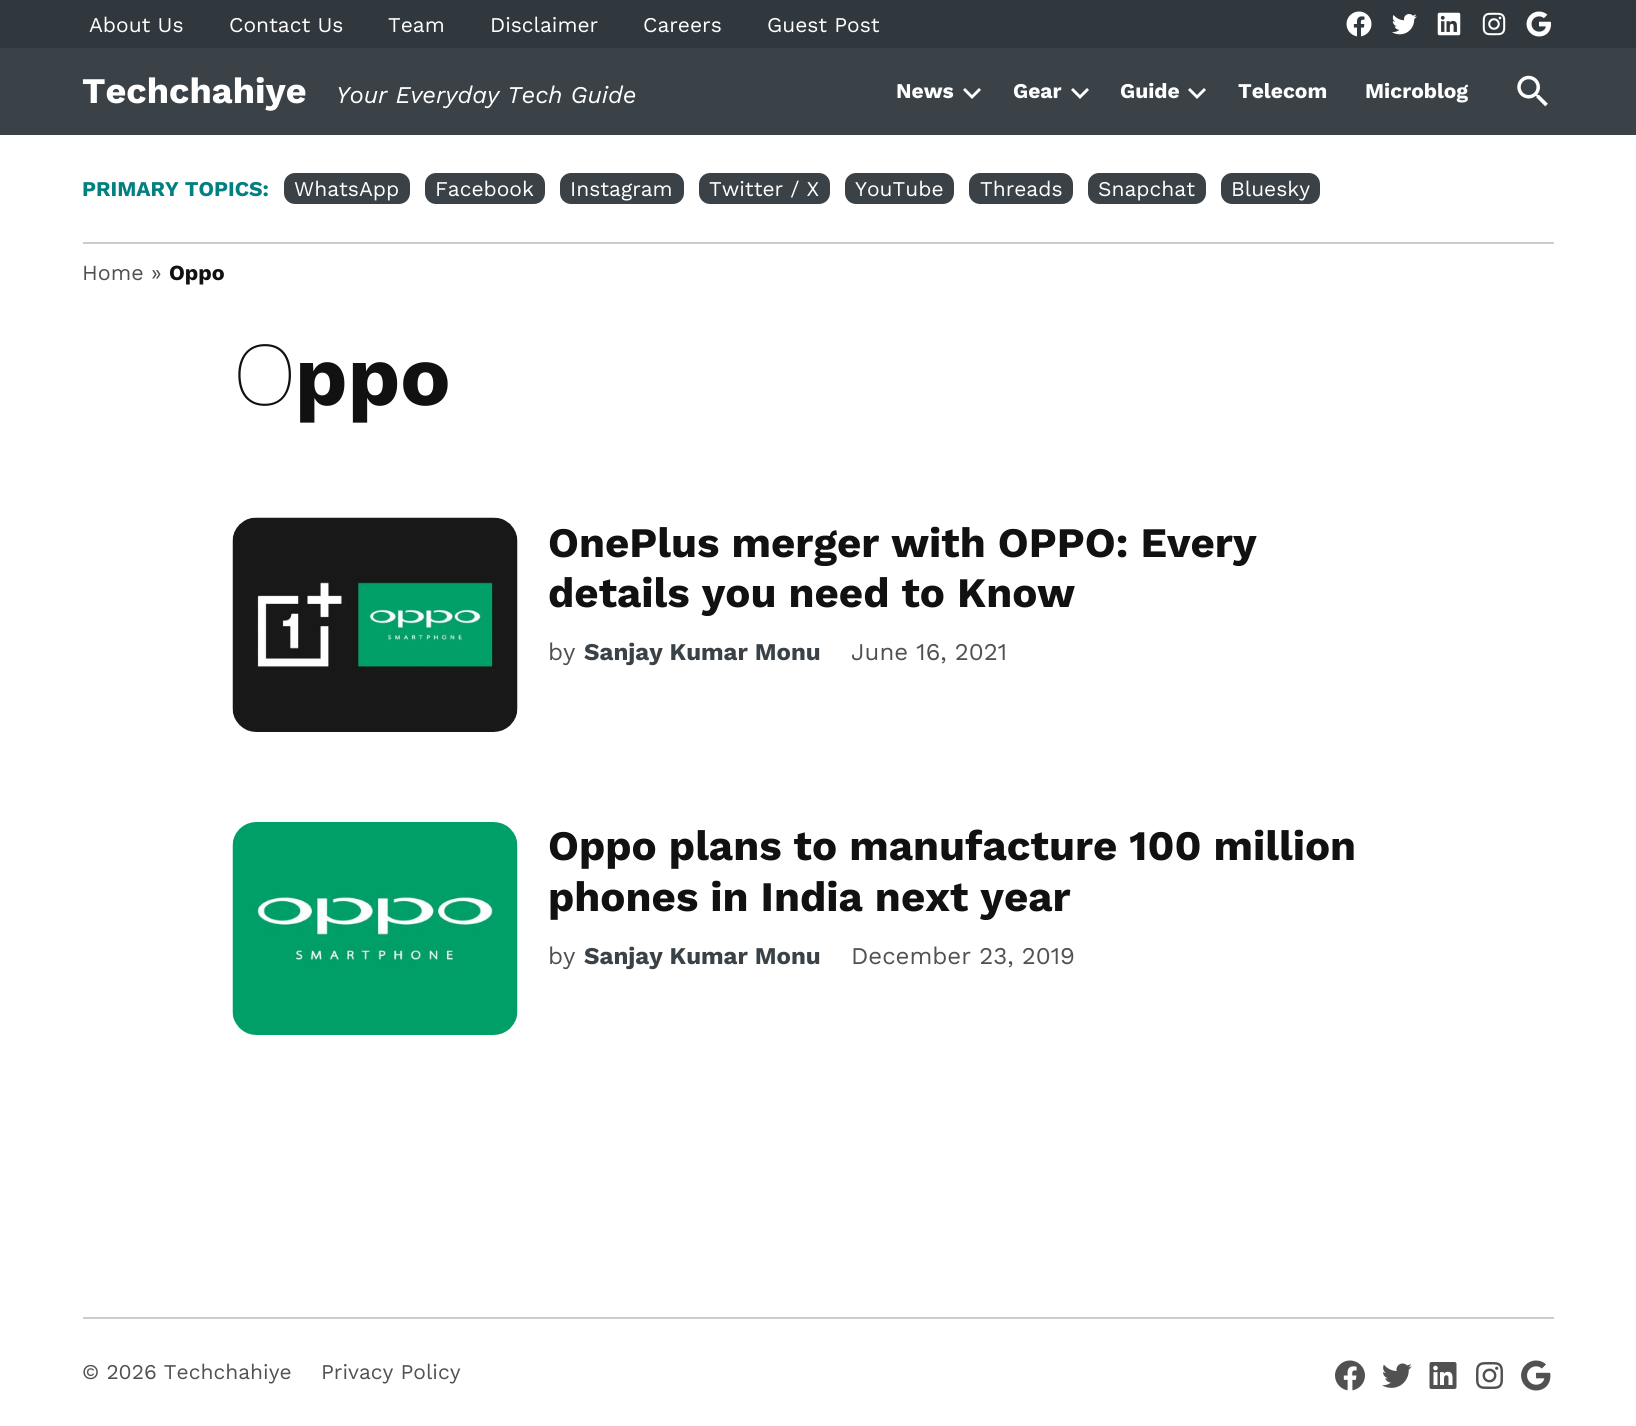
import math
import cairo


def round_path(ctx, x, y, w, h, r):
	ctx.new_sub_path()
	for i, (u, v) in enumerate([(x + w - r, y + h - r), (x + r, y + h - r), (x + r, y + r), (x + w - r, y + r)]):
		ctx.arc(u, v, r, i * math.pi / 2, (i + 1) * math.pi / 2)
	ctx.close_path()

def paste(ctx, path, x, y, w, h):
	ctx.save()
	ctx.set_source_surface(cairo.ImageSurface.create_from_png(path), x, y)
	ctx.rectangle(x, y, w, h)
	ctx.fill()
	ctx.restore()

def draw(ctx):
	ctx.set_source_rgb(1, 1, 1)
	ctx.paint()
	ctx.set_source_rgb(0.188, 0.22, 0.239)
	ctx.rectangle(0, 0, 1636, 48)
	ctx.fill()
	ctx.select_font_face('Work Sans')
	ctx.set_font_size(21)
	ctx.set_source_rgb(1, 1, 1)
	for x, y, s in [
		(89, 32, 'About Us'),
		(229, 32, 'Contact Us'),
		(388, 32, 'Team'),
		(490, 32, 'Disclaimer'),
		(643, 32, 'Careers'),
		(767, 32, 'Guest Post'),
	]:
		ctx.move_to(x, y)
		ctx.show_text(s)
	paste(ctx, 'media/1.png', 1346, 11, 26, 26)
	paste(ctx, 'media/2.png', 1392, 14, 25, 21)
	paste(ctx, 'media/3.png', 1437, 12, 24, 24)
	paste(ctx, 'media/4.png', 1482, 12, 24, 24)
	paste(ctx, 'media/5.png', 1526, 11, 25, 26)
	ctx.set_source_rgb(0.227, 0.259, 0.278)
	ctx.rectangle(0, 48, 1636, 87)
	ctx.fill()
	ctx.select_font_face('Work Sans', cairo.FONT_SLANT_NORMAL, cairo.FONT_WEIGHT_BOLD)
	ctx.set_font_size(36)
	ctx.set_source_rgb(1, 1, 1)
	ctx.move_to(82, 103)
	ctx.show_text('Techchahiye')
	ctx.select_font_face('Work Sans', cairo.FONT_SLANT_ITALIC)
	ctx.set_font_size(24)
	ctx.move_to(336, 103)
	ctx.show_text('Your Everyday Tech Guide')
	ctx.select_font_face('Work Sans', cairo.FONT_SLANT_NORMAL, cairo.FONT_WEIGHT_BOLD)
	ctx.set_font_size(21)
	ctx.move_to(896, 98)
	ctx.show_text('News')
	ctx.new_path()
	ctx.move_to(965, 88)
	ctx.line_to(972, 95)
	ctx.line_to(979, 88)
	ctx.line_to(981, 90)
	ctx.line_to(972, 99)
	ctx.line_to(963, 90)
	ctx.close_path()
	ctx.fill()
	ctx.move_to(1013, 98)
	ctx.show_text('Gear')
	ctx.new_path()
	ctx.move_to(1073, 88)
	ctx.line_to(1080, 95)
	ctx.line_to(1087, 88)
	ctx.line_to(1089, 90)
	ctx.line_to(1080, 99)
	ctx.line_to(1071, 90)
	ctx.close_path()
	ctx.fill()
	ctx.move_to(1120, 98)
	ctx.show_text('Guide')
	ctx.new_path()
	ctx.move_to(1190, 88)
	ctx.line_to(1197, 95)
	ctx.line_to(1204, 88)
	ctx.line_to(1206, 90)
	ctx.line_to(1197, 99)
	ctx.line_to(1188, 90)
	ctx.close_path()
	ctx.fill()
	ctx.move_to(1238, 98)
	ctx.show_text('Telecom')
	ctx.move_to(1365, 98)
	ctx.show_text('Microblog')
	paste(ctx, 'media/6.png', 1517, 75, 31, 32)
	ctx.set_source_rgb(0, 0.502, 0.502)
	ctx.move_to(82, 196)
	ctx.show_text('PRIMARY TOPICS:')
	ctx.set_source_rgb(0.227, 0.259, 0.278)
	round_path(ctx, 284, 173, 126, 31, 11)
	ctx.fill()
	ctx.select_font_face('Work Sans')
	ctx.set_source_rgb(1, 1, 1)
	ctx.move_to(294, 196)
	ctx.show_text('WhatsApp')
	ctx.set_source_rgb(0.227, 0.259, 0.278)
	round_path(ctx, 425, 173, 120, 31, 11)
	ctx.fill()
	ctx.set_source_rgb(1, 1, 1)
	ctx.move_to(435, 196)
	ctx.show_text('Facebook')
	ctx.set_source_rgb(0.227, 0.259, 0.278)
	round_path(ctx, 560, 173, 124, 31, 11)
	ctx.fill()
	ctx.set_source_rgb(1, 1, 1)
	ctx.move_to(570, 196)
	ctx.show_text('Instagram')
	ctx.set_source_rgb(0.227, 0.259, 0.278)
	round_path(ctx, 699, 173, 131, 31, 11)
	ctx.fill()
	ctx.set_source_rgb(1, 1, 1)
	ctx.move_to(709, 196)
	ctx.show_text('Twitter / X')
	ctx.set_source_rgb(0.227, 0.259, 0.278)
	round_path(ctx, 845, 173, 109, 31, 11)
	ctx.fill()
	ctx.set_source_rgb(1, 1, 1)
	ctx.move_to(855, 196)
	ctx.show_text('YouTube')
	ctx.set_source_rgb(0.227, 0.259, 0.278)
	round_path(ctx, 969, 173, 104, 31, 11)
	ctx.fill()
	ctx.set_source_rgb(1, 1, 1)
	ctx.move_to(980, 196)
	ctx.show_text('Threads')
	ctx.set_source_rgb(0.227, 0.259, 0.278)
	round_path(ctx, 1088, 173, 118, 31, 11)
	ctx.fill()
	ctx.set_source_rgb(1, 1, 1)
	ctx.move_to(1098, 196)
	ctx.show_text('Snapchat')
	ctx.set_source_rgb(0.227, 0.259, 0.278)
	round_path(ctx, 1221, 173, 99, 31, 11)
	ctx.fill()
	ctx.set_source_rgb(1, 1, 1)
	ctx.move_to(1231, 196)
	ctx.show_text('Bluesky')
	ctx.set_source_rgb(0.8, 0.8, 0.8)
	ctx.rectangle(83, 242, 1471, 2)
	ctx.fill()
	ctx.set_font_size(21.5)
	ctx.set_source_rgb(0.318, 0.318, 0.318)
	ctx.move_to(82, 280)
	ctx.show_text('Home »')
	ctx.select_font_face('Work Sans', cairo.FONT_SLANT_NORMAL, cairo.FONT_WEIGHT_BOLD)
	ctx.set_source_rgb(0.067, 0.067, 0.067)
	ctx.move_to(169, 280)
	ctx.show_text('Oppo')
	ctx.select_font_face('Noto Sans Thin')
	ctx.set_font_size(84)
	ctx.move_to(233, 405)
	ctx.show_text('O')
	ctx.select_font_face('Work Sans', cairo.FONT_SLANT_NORMAL, cairo.FONT_WEIGHT_BOLD)
	ctx.move_to(295, 405)
	ctx.show_text('ppo')
	paste(ctx, 'media/7.png', 232, 517, 286, 215)
	ctx.set_font_size(42)
	ctx.move_to(548, 557)
	ctx.show_text('OnePlus merger with OPPO: Every')
	ctx.move_to(548, 607)
	ctx.show_text('details you need to Know')
	ctx.select_font_face('Work Sans')
	ctx.set_font_size(24)
	ctx.set_source_rgb(0.318, 0.318, 0.318)
	ctx.move_to(548, 660)
	ctx.show_text('by')
	ctx.select_font_face('Work Sans', cairo.FONT_SLANT_NORMAL, cairo.FONT_WEIGHT_BOLD)
	ctx.set_source_rgb(0.227, 0.259, 0.278)
	ctx.move_to(584, 660)
	ctx.show_text('Sanjay Kumar Monu')
	ctx.select_font_face('Work Sans')
	ctx.set_source_rgb(0.318, 0.318, 0.318)
	ctx.move_to(851, 660)
	ctx.show_text('June 16, 2021')
	paste(ctx, 'media/8.png', 232, 822, 286, 213)
	ctx.select_font_face('Work Sans', cairo.FONT_SLANT_NORMAL, cairo.FONT_WEIGHT_BOLD)
	ctx.set_font_size(42)
	ctx.set_source_rgb(0.067, 0.067, 0.067)
	ctx.move_to(548, 860)
	ctx.show_text('Oppo plans to manufacture 100 million')
	ctx.move_to(548, 911)
	ctx.show_text('phones in India next year')
	ctx.select_font_face('Work Sans')
	ctx.set_font_size(24)
	ctx.set_source_rgb(0.318, 0.318, 0.318)
	ctx.move_to(548, 964)
	ctx.show_text('by')
	ctx.select_font_face('Work Sans', cairo.FONT_SLANT_NORMAL, cairo.FONT_WEIGHT_BOLD)
	ctx.set_source_rgb(0.227, 0.259, 0.278)
	ctx.move_to(584, 964)
	ctx.show_text('Sanjay Kumar Monu')
	ctx.select_font_face('Work Sans')
	ctx.set_source_rgb(0.318, 0.318, 0.318)
	ctx.move_to(851, 964)
	ctx.show_text('December 23, 2019')
	ctx.set_source_rgb(0.8, 0.8, 0.8)
	ctx.rectangle(83, 1317, 1471, 2)
	ctx.fill()
	ctx.set_font_size(21)
	ctx.set_source_rgb(0.318, 0.318, 0.318)
	ctx.move_to(82, 1379)
	ctx.show_text('© 2026 Techchahiye')
	ctx.move_to(321, 1379)
	ctx.show_text('Privacy Policy')
	paste(ctx, 'media/9.png', 1335, 1360, 30, 31)
	paste(ctx, 'media/10.png', 1382, 1363, 30, 25)
	paste(ctx, 'media/11.png', 1429, 1362, 28, 27)
	paste(ctx, 'media/12.png', 1476, 1362, 27, 27)
	paste(ctx, 'media/13.png', 1521, 1360, 30, 31)


surface = cairo.ImageSurface(cairo.FORMAT_RGB24, 1636, 1426)
ctx = cairo.Context(surface)
options = cairo.FontOptions()
options.set_hint_metrics(cairo.HINT_METRICS_OFF)
options.set_hint_style(cairo.HINT_STYLE_NONE)
ctx.set_font_options(options)
ctx.set_miter_limit(4)
draw(ctx)
surface.write_to_png('image.png')
